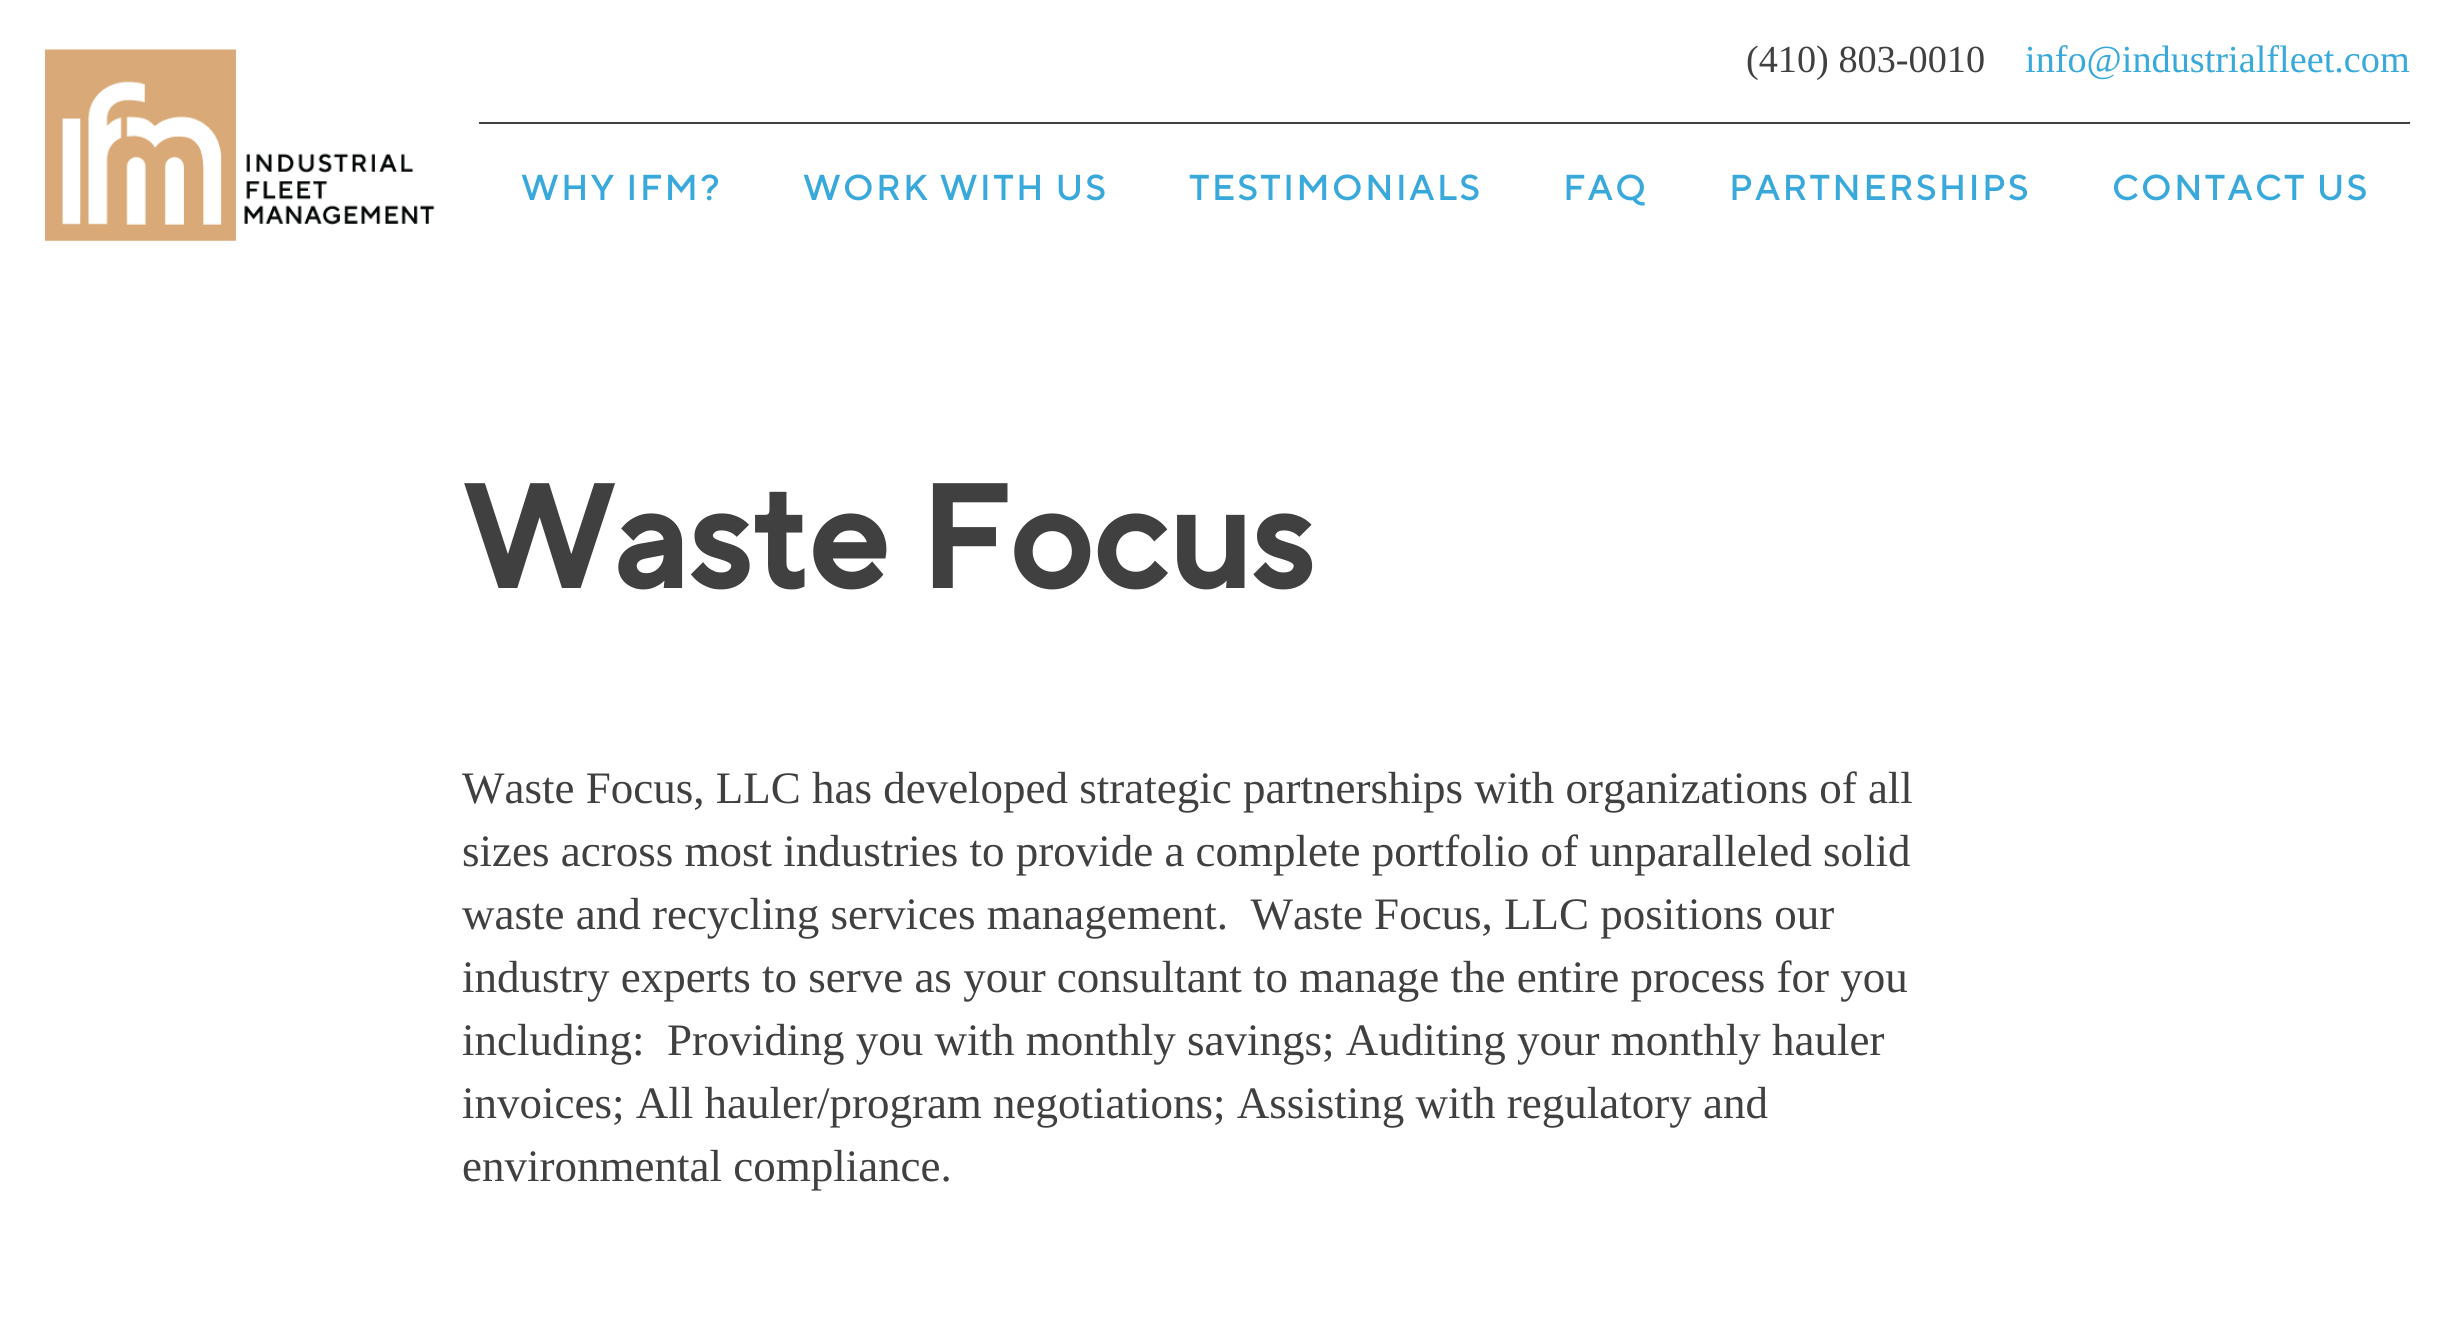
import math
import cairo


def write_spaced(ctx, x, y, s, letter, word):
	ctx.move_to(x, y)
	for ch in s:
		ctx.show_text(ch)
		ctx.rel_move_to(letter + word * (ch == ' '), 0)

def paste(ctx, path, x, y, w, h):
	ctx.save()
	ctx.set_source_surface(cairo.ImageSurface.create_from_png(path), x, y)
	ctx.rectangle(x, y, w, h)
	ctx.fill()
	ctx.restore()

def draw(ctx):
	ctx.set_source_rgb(1, 1, 1)
	ctx.paint()
	paste(ctx, 'media/1.png', 45, 49, 390, 192)
	ctx.select_font_face('Liberation Serif')
	ctx.set_font_size(38.25)
	ctx.set_source_rgb(0.251, 0.251, 0.251)
	ctx.move_to(1746, 72)
	ctx.show_text('(410) 803-0010')
	ctx.set_source_rgb(0.224, 0.663, 0.859)
	ctx.move_to(2025, 72)
	ctx.show_text('info@industrialfleet.com')
	ctx.set_source_rgb(0.251, 0.251, 0.251)
	ctx.rectangle(479, 122, 1931, 2)
	ctx.fill()
	ctx.select_font_face('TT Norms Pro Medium')
	ctx.set_font_size(36)
	ctx.set_source_rgb(0.224, 0.663, 0.859)
	for x, y, s in [
		(521, 200, 'WHY IFM?'),
		(803, 200, 'WORK WITH US'),
		(1189, 200, 'TESTIMONIALS'),
		(1563, 200, 'FAQ'),
		(1729, 200, 'PARTNERSHIPS'),
		(2112, 200, 'CONTACT US'),
	]:
		write_spaced(ctx, x, y, s, 2.25, 0)
	ctx.select_font_face('TT Norms Pro', cairo.FONT_SLANT_NORMAL, cairo.FONT_WEIGHT_BOLD)
	ctx.set_font_size(144)
	ctx.set_source_rgb(0.251, 0.251, 0.251)
	ctx.move_to(462, 588)
	ctx.show_text('Waste Focus')
	ctx.select_font_face('Liberation Serif')
	ctx.set_font_size(45)
	for x, y, s in [
		(462, 803, 'Waste Focus, LLC has developed strategic partnerships with organizations of all'),
		(462, 866, 'sizes across most industries to provide a complete portfolio of unparalleled solid'),
		(462, 929, 'waste and recycling services management.  Waste Focus, LLC positions our'),
		(462, 992, 'industry experts to serve as your consultant to manage the entire process for you'),
		(462, 1055, 'including:  Providing you with monthly savings; Auditing your monthly hauler'),
		(462, 1118, 'invoices; All hauler/program negotiations; Assisting with regulatory and'),
		(462, 1181, 'environmental compliance.'),
	]:
		ctx.move_to(x, y)
		ctx.show_text(s)


surface = cairo.ImageSurface(cairo.FORMAT_RGB24, 2453, 1339)
ctx = cairo.Context(surface)
options = cairo.FontOptions()
options.set_hint_metrics(cairo.HINT_METRICS_OFF)
options.set_hint_style(cairo.HINT_STYLE_NONE)
ctx.set_font_options(options)
ctx.set_miter_limit(4)
draw(ctx)
surface.write_to_png('image.png')
